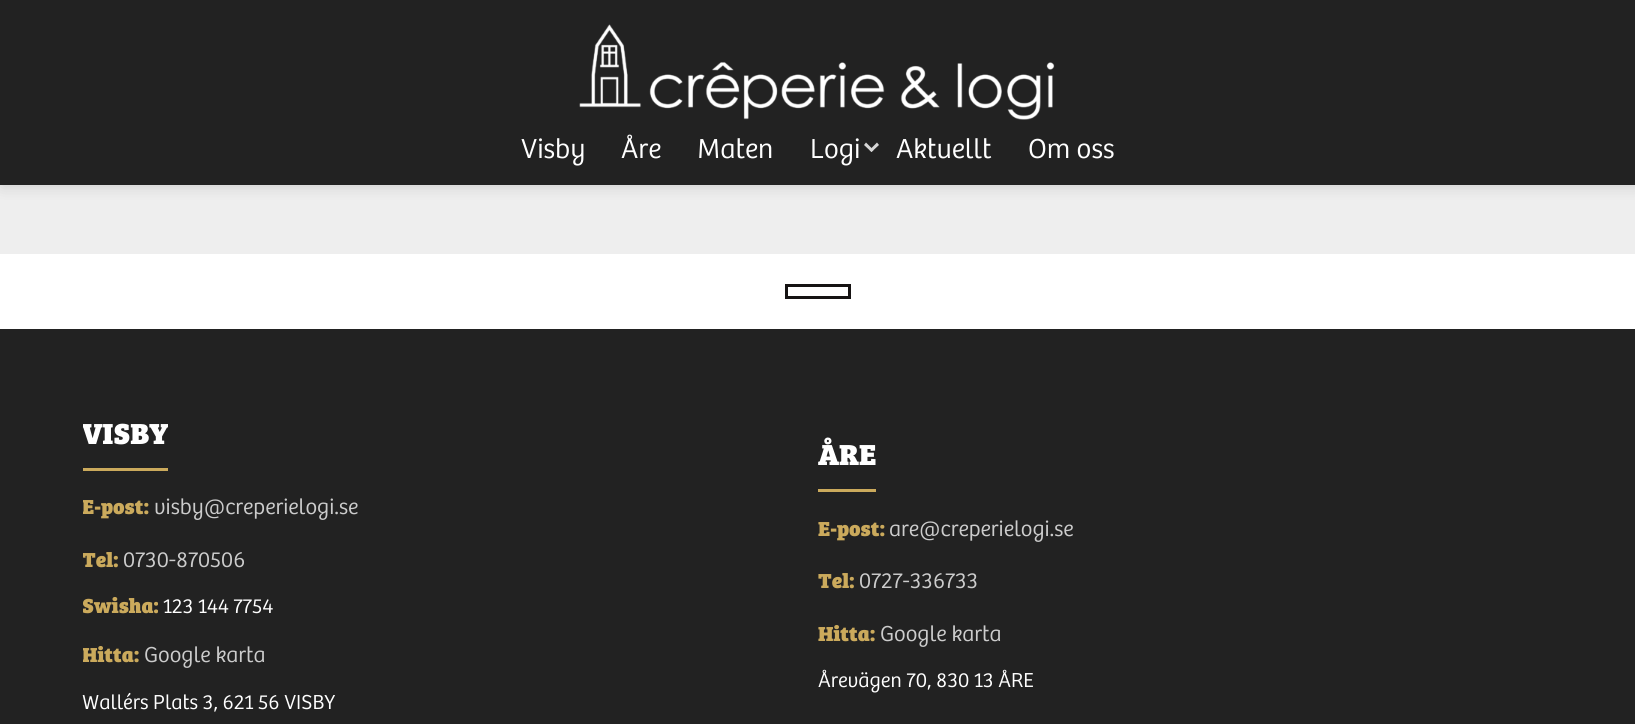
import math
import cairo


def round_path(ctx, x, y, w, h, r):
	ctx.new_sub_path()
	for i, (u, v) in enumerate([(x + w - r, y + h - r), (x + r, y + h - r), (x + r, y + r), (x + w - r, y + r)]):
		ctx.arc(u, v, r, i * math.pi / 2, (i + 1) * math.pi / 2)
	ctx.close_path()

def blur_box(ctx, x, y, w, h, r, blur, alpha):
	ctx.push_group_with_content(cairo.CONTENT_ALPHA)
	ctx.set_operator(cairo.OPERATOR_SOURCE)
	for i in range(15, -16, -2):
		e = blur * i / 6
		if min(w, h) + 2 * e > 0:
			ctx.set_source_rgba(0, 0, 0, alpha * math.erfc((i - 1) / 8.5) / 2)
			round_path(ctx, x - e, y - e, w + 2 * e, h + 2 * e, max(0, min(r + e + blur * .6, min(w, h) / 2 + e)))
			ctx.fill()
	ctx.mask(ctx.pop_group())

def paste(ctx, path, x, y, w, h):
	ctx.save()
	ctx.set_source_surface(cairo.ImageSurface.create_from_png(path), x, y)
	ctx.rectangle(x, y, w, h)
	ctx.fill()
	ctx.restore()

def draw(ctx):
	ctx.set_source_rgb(1, 1, 1)
	ctx.paint()
	ctx.set_source_rgb(0.933, 0.933, 0.933)
	ctx.rectangle(0, 185, 1635, 69)
	ctx.fill()
	ctx.set_source_rgb(0, 0, 0)
	blur_box(ctx, 2, 2, 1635, 184, 0, 7.5, 0.15)
	ctx.set_source_rgb(0.133, 0.133, 0.133)
	ctx.rectangle(0, 0, 1635, 185)
	ctx.fill()
	paste(ctx, 'media/1.png', 579, 24, 476, 96)
	ctx.select_font_face('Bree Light')
	ctx.set_font_size(28.5)
	ctx.set_source_rgb(1, 1, 1)
	for x, y, s in [
		(521, 158, 'Visby'),
		(621, 158, 'Åre'),
		(697, 158, 'Maten'),
		(810, 158, 'Logi'),
	]:
		ctx.move_to(x, y)
		ctx.show_text(s)
	ctx.set_source_rgb(0.839, 0.839, 0.839)
	ctx.new_path()
	ctx.move_to(871.5, 152)
	ctx.line_to(864, 145)
	ctx.line_to(866, 142.5)
	ctx.line_to(873.5, 150)
	ctx.close_path()
	ctx.fill()
	ctx.new_path()
	ctx.move_to(871.5, 152)
	ctx.line_to(869.5, 150)
	ctx.line_to(877, 142.5)
	ctx.line_to(879, 145)
	ctx.close_path()
	ctx.fill()
	ctx.set_source_rgb(1, 1, 1)
	ctx.move_to(896, 158)
	ctx.show_text('Aktuellt')
	ctx.move_to(1028, 158)
	ctx.show_text('Om oss')
	ctx.rectangle(786.5, 285.5, 63, 12)
	ctx.set_source_rgb(0.086, 0.078, 0.078)
	ctx.set_line_width(3)
	ctx.stroke()
	ctx.set_source_rgb(0.133, 0.133, 0.133)
	ctx.rectangle(0, 329, 1635, 395)
	ctx.fill()
	ctx.set_source_rgb(0.796, 0.667, 0.361)
	ctx.rectangle(83, 468, 85, 3)
	ctx.fill()
	ctx.save()
	ctx.rectangle(83, 411, 1471, 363)
	ctx.clip()
	ctx.select_font_face('Bree Serif ExtraBold')
	ctx.set_font_size(30)
	ctx.set_source_rgb(1, 1, 1)
	ctx.move_to(82, 444)
	ctx.show_text('VISBY')
	ctx.set_font_size(21)
	ctx.set_source_rgb(0.796, 0.667, 0.361)
	ctx.move_to(82, 514)
	ctx.show_text('E-post:')
	ctx.restore()
	ctx.set_font_size(22.5)
	ctx.set_source_rgb(0.8, 0.8, 0.8)
	ctx.move_to(154, 514)
	ctx.show_text('visby@creperielogi.se')
	ctx.save()
	ctx.rectangle(83, 411, 1471, 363)
	ctx.clip()
	ctx.select_font_face('Bree Serif ExtraBold')
	ctx.set_font_size(21)
	ctx.set_source_rgb(0.796, 0.667, 0.361)
	ctx.move_to(82, 567)
	ctx.show_text('Tel:')
	ctx.restore()
	ctx.move_to(123, 567)
	ctx.show_text('0730-870506')
	ctx.save()
	ctx.rectangle(83, 411, 1471, 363)
	ctx.clip()
	ctx.select_font_face('Bree Serif ExtraBold')
	ctx.set_font_size(21)
	ctx.set_source_rgb(0.796, 0.667, 0.361)
	ctx.move_to(82, 613)
	ctx.show_text('Swisha:')
	ctx.restore()
	ctx.set_font_size(21)
	ctx.set_source_rgb(1, 1, 1)
	ctx.move_to(163, 613)
	ctx.show_text('123 144 7754')
	ctx.save()
	ctx.rectangle(83, 411, 1471, 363)
	ctx.clip()
	ctx.select_font_face('Bree Serif ExtraBold')
	ctx.set_source_rgb(0.796, 0.667, 0.361)
	ctx.move_to(82, 662)
	ctx.show_text('Hitta:')
	ctx.restore()
	ctx.set_font_size(22.5)
	ctx.set_source_rgb(0.8, 0.8, 0.8)
	ctx.move_to(144, 662)
	ctx.show_text('Google karta')
	ctx.set_font_size(21)
	ctx.set_source_rgb(1, 1, 1)
	ctx.move_to(82, 709)
	ctx.show_text('Wallérs Plats 3, 621 56 VISBY')
	ctx.set_source_rgb(0.796, 0.667, 0.361)
	ctx.rectangle(818, 489, 58, 3)
	ctx.fill()
	ctx.select_font_face('Bree Serif ExtraBold')
	ctx.set_font_size(30)
	ctx.set_source_rgb(1, 1, 1)
	ctx.move_to(818, 465)
	ctx.show_text('ÅRE')
	ctx.set_font_size(21)
	ctx.set_source_rgb(0.796, 0.667, 0.361)
	ctx.move_to(818, 536)
	ctx.show_text('E-post:')
	ctx.select_font_face('Bree Light')
	ctx.set_font_size(22.5)
	ctx.set_source_rgb(0.8, 0.8, 0.8)
	ctx.move_to(889, 536)
	ctx.show_text('are@creperielogi.se')
	ctx.select_font_face('Bree Serif ExtraBold')
	ctx.set_font_size(21)
	ctx.set_source_rgb(0.796, 0.667, 0.361)
	ctx.move_to(818, 588)
	ctx.show_text('Tel:')
	ctx.select_font_face('Bree Light')
	ctx.set_font_size(22.5)
	ctx.set_source_rgb(0.8, 0.8, 0.8)
	ctx.move_to(859, 588)
	ctx.show_text('0727-336733')
	ctx.select_font_face('Bree Serif ExtraBold')
	ctx.set_font_size(21)
	ctx.set_source_rgb(0.796, 0.667, 0.361)
	ctx.move_to(818, 641)
	ctx.show_text('Hitta:')
	ctx.select_font_face('Bree Light')
	ctx.set_font_size(22.5)
	ctx.set_source_rgb(0.8, 0.8, 0.8)
	ctx.move_to(880, 641)
	ctx.show_text('Google karta')
	ctx.set_font_size(21)
	ctx.set_source_rgb(1, 1, 1)
	ctx.move_to(818, 687)
	ctx.show_text('Årevägen 70, 830 13 ÅRE')


surface = cairo.ImageSurface(cairo.FORMAT_RGB24, 1635, 724)
ctx = cairo.Context(surface)
options = cairo.FontOptions()
options.set_hint_metrics(cairo.HINT_METRICS_OFF)
options.set_hint_style(cairo.HINT_STYLE_NONE)
ctx.set_font_options(options)
ctx.set_miter_limit(4)
draw(ctx)
surface.write_to_png('image.png')
